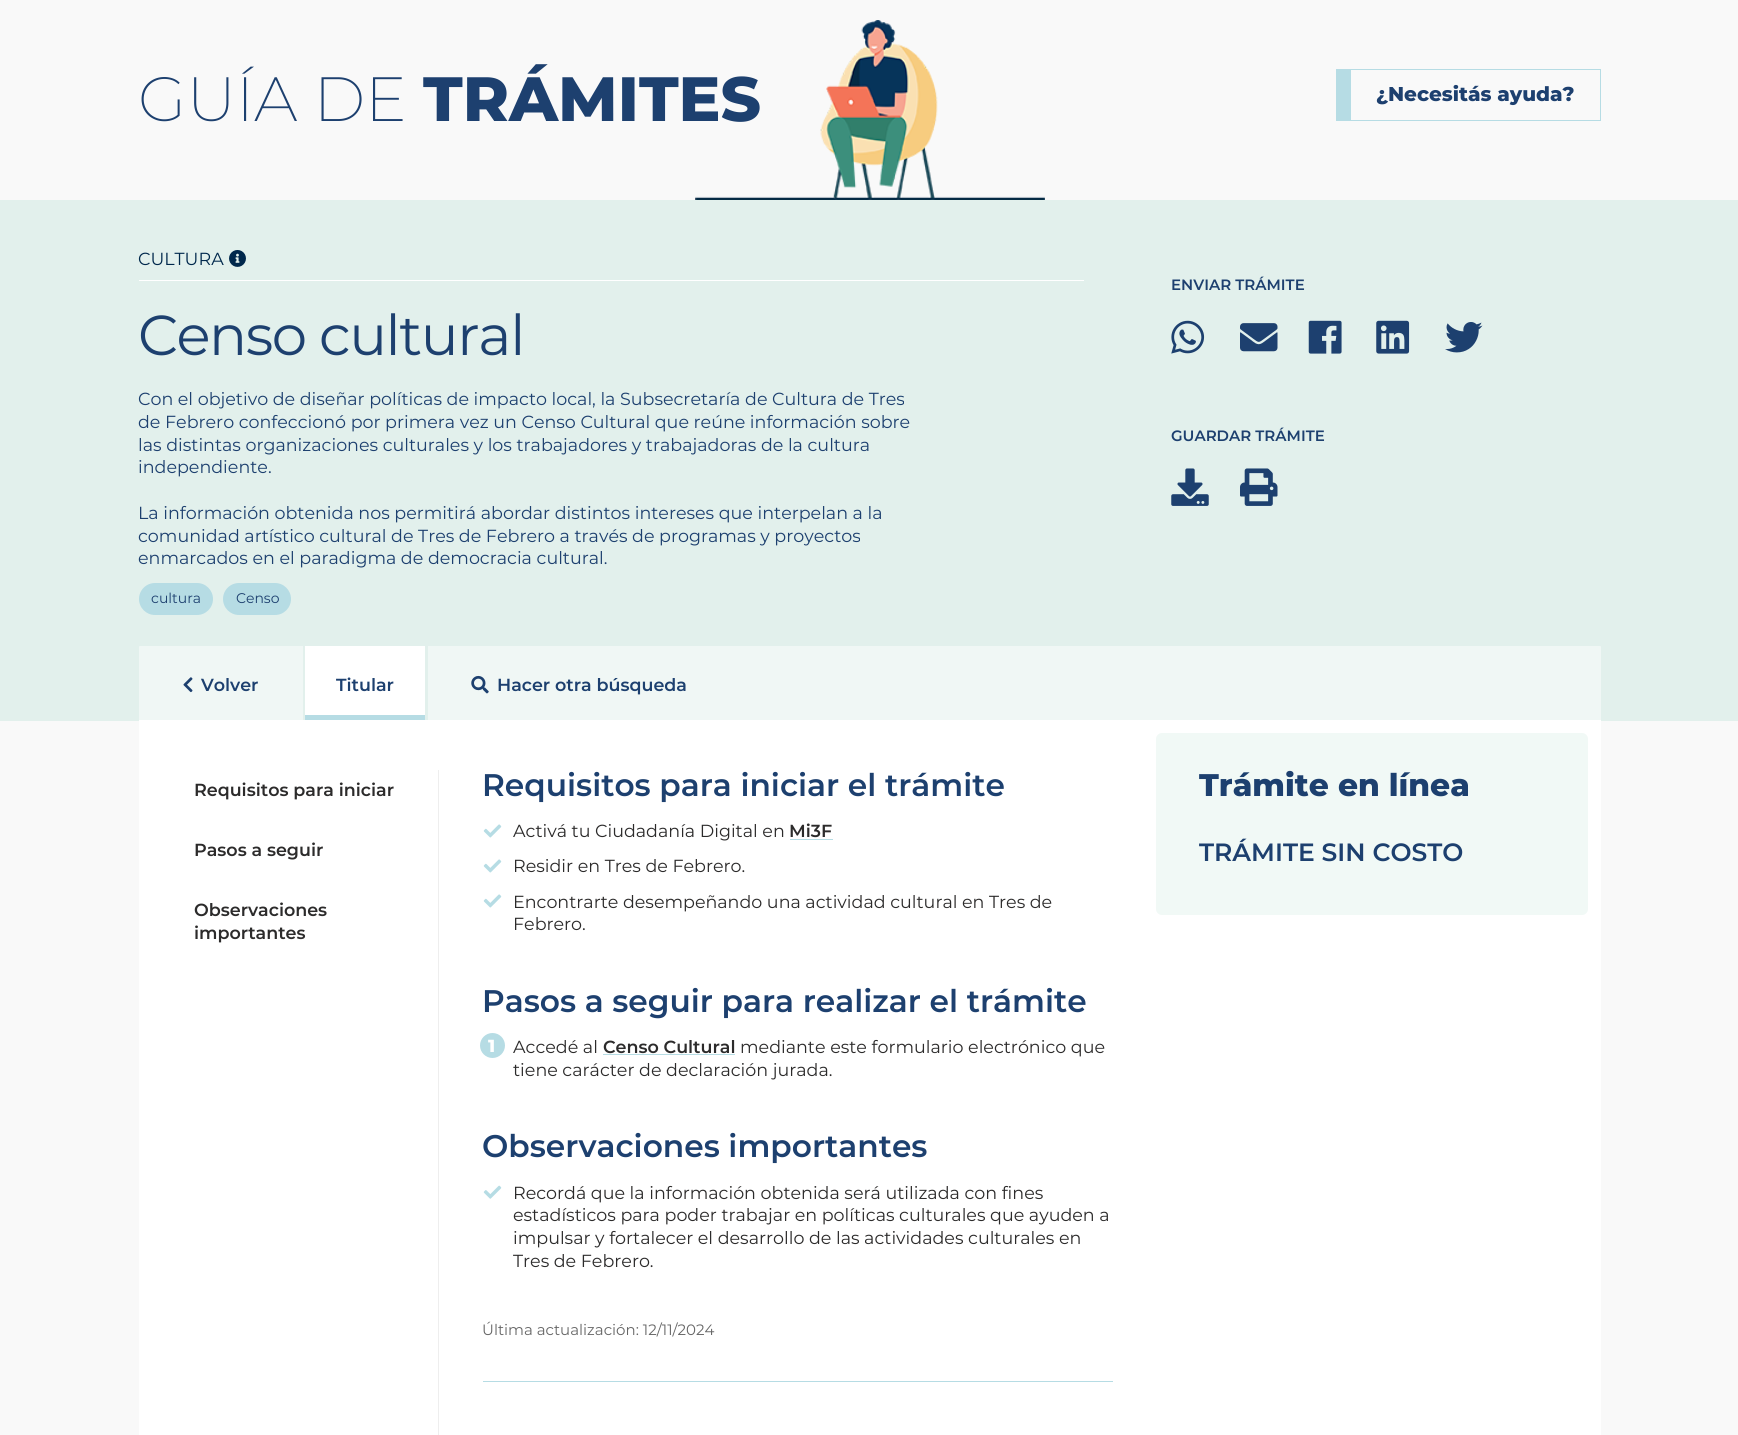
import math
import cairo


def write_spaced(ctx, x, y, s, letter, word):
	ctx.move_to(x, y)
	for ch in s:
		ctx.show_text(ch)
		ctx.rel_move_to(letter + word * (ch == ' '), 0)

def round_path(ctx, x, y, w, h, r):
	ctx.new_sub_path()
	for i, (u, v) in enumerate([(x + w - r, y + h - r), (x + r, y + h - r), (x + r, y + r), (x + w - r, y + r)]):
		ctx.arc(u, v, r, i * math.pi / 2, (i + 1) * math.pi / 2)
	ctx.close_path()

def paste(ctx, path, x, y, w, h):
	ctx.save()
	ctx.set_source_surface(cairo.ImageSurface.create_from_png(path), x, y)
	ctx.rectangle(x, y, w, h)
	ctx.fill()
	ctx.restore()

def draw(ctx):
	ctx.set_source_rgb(0.976, 0.976, 0.976)
	ctx.paint()
	paste(ctx, 'media/1.png', 695, 20, 350, 180)
	ctx.select_font_face('Montserrat ExtraLight')
	ctx.set_font_size(62.5)
	ctx.set_source_rgb(0.114, 0.251, 0.435)
	ctx.move_to(138, 121)
	ctx.show_text('GUÍA DE')
	ctx.select_font_face('Montserrat ExtraBold')
	ctx.move_to(423, 121)
	ctx.show_text('TRÁMITES')
	ctx.set_source_rgb(0.714, 0.863, 0.894)
	ctx.rectangle(1351, 69, 250, 1)
	ctx.rectangle(1600, 69, 1, 52)
	ctx.rectangle(1351, 120, 250, 1)
	ctx.rectangle(1336, 69, 15, 52)
	ctx.fill()
	ctx.set_font_size(20)
	ctx.set_source_rgb(0.114, 0.251, 0.435)
	ctx.move_to(1376, 101)
	ctx.show_text('¿Necesitás ayuda?')
	ctx.set_source_rgb(0.886, 0.941, 0.922)
	ctx.rectangle(0, 200, 1738, 521)
	ctx.fill()
	ctx.set_source_rgb(1, 1, 1)
	ctx.rectangle(139, 280, 945, 1)
	ctx.fill()
	ctx.select_font_face('Montserrat')
	ctx.set_font_size(17.5)
	ctx.set_source_rgb(0, 0.157, 0.298)
	ctx.move_to(138, 265)
	ctx.show_text('CULTURA')
	paste(ctx, 'media/2.png', 229, 250, 17, 17)
	ctx.set_font_size(56.25)
	ctx.set_source_rgb(0.114, 0.251, 0.435)
	write_spaced(ctx, 138, 355, 'Censo cultural', -1.4, 0)
	ctx.set_font_size(17.5)
	for x, y, s in [
		(138, 405, 'Con el objetivo de diseñar políticas de impacto local, la Subsecretaría de Cultura de Tres'),
		(138, 428, 'de Febrero confeccionó por primera vez un Censo Cultural que reúne información sobre'),
		(138, 451, 'las distintas organizaciones culturales y los trabajadores y trabajadoras de la cultura'),
		(138, 473, 'independiente.'),
		(138, 519, 'La información obtenida nos permitirá abordar distintos intereses que interpelan a la'),
		(138, 542, 'comunidad artístico cultural de Tres de Febrero a través de programas y proyectos'),
		(138, 564, 'enmarcados en el paradigma de democracia cultural.'),
	]:
		ctx.move_to(x, y)
		ctx.show_text(s)
	ctx.set_source_rgb(0.714, 0.863, 0.894)
	round_path(ctx, 139, 583, 74, 32, 16)
	ctx.fill()
	ctx.set_font_size(14)
	ctx.set_source_rgb(0.114, 0.251, 0.435)
	ctx.move_to(151, 603)
	ctx.show_text('cultura')
	ctx.set_source_rgb(0.714, 0.863, 0.894)
	round_path(ctx, 223, 583, 68, 32, 16)
	ctx.fill()
	ctx.set_source_rgb(0.114, 0.251, 0.435)
	ctx.move_to(236, 603)
	ctx.show_text('Censo')
	ctx.select_font_face('Montserrat SemiBold')
	ctx.set_font_size(15)
	ctx.move_to(1171, 290)
	ctx.show_text('ENVIAR TRÁMITE')
	paste(ctx, 'media/3.png', 1171, 320, 34, 34)
	paste(ctx, 'media/4.png', 1240, 323, 38, 29)
	paste(ctx, 'media/5.png', 1308, 320, 34, 34)
	paste(ctx, 'media/6.png', 1376, 320, 34, 34)
	paste(ctx, 'media/7.png', 1445, 322, 38, 31)
	ctx.move_to(1171, 441)
	ctx.show_text('GUARDAR TRÁMITE')
	paste(ctx, 'media/8.png', 1171, 468, 38, 38)
	paste(ctx, 'media/9.png', 1240, 468, 38, 38)
	ctx.set_source_rgb(1, 1, 1)
	round_path(ctx, 139, 646, 1462, 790, 1)
	ctx.fill()
	ctx.set_source_rgba(0.886, 0.941, 0.922, 0.5)
	ctx.rectangle(139, 646, 1462, 74)
	ctx.fill()
	ctx.set_source_rgb(0.886, 0.941, 0.922)
	ctx.rectangle(303, 646, 2, 74)
	ctx.fill()
	paste(ctx, 'media/10.png', 183, 677, 10, 16)
	ctx.set_font_size(17.5)
	ctx.set_source_rgb(0.114, 0.251, 0.435)
	ctx.move_to(201, 691)
	ctx.show_text('Volver')
	ctx.set_source_rgb(1, 1, 1)
	ctx.rectangle(305, 646, 120, 69)
	ctx.fill()
	ctx.set_source_rgb(0.714, 0.863, 0.894)
	ctx.rectangle(305, 715, 120, 5)
	ctx.fill()
	ctx.set_source_rgb(0.114, 0.251, 0.435)
	ctx.move_to(336, 691)
	ctx.show_text('Titular')
	ctx.set_source_rgb(0.886, 0.941, 0.922)
	ctx.rectangle(425, 646, 3, 74)
	ctx.fill()
	paste(ctx, 'media/11.png', 471, 675, 18, 19)
	ctx.set_source_rgb(0.114, 0.251, 0.435)
	ctx.move_to(497, 691)
	ctx.show_text('Hacer otra búsqueda')
	ctx.set_source_rgb(0.173, 0.169, 0.169)
	for x, y, s in [
		(194, 796, 'Requisitos para iniciar'),
		(194, 856, 'Pasos a seguir'),
		(194, 916, 'Observaciones'),
		(194, 939, 'importantes'),
	]:
		ctx.move_to(x, y)
		ctx.show_text(s)
	ctx.set_source_rgb(0.933, 0.933, 0.933)
	ctx.rectangle(438, 770, 1, 665)
	ctx.fill()
	ctx.set_font_size(31.25)
	ctx.set_source_rgb(0.114, 0.251, 0.435)
	ctx.move_to(482, 796)
	ctx.show_text('Requisitos para iniciar el trámite')
	paste(ctx, 'media/12.png', 483, 824, 19, 14)
	ctx.select_font_face('Montserrat')
	ctx.set_font_size(17.5)
	ctx.set_source_rgb(0.173, 0.169, 0.169)
	ctx.move_to(513, 837)
	ctx.show_text('Activá tu Ciudadanía Digital en')
	ctx.select_font_face('Montserrat SemiBold')
	ctx.move_to(789, 837)
	ctx.show_text('Mi3F')
	ctx.set_source_rgb(0.714, 0.863, 0.894)
	ctx.rectangle(790, 839, 43, 1)
	ctx.fill()
	paste(ctx, 'media/12.png', 483, 859, 19, 14)
	ctx.select_font_face('Montserrat')
	ctx.set_source_rgb(0.173, 0.169, 0.169)
	ctx.move_to(513, 872)
	ctx.show_text('Residir en Tres de Febrero.')
	paste(ctx, 'media/12.png', 483, 894, 19, 14)
	ctx.move_to(513, 908)
	ctx.show_text('Encontrarte desempeñando una actividad cultural en Tres de')
	ctx.move_to(513, 930)
	ctx.show_text('Febrero.')
	ctx.select_font_face('Montserrat SemiBold')
	ctx.set_font_size(31.25)
	ctx.set_source_rgb(0.114, 0.251, 0.435)
	ctx.move_to(482, 1012)
	ctx.show_text('Pasos a seguir para realizar el trámite')
	ctx.set_source_rgb(0.714, 0.863, 0.894)
	ctx.new_path()
	ctx.arc(492.5, 1045.5, 12.5, 0, 2 * math.pi)
	ctx.fill()
	ctx.select_font_face('Montserrat ExtraBold')
	ctx.set_font_size(17.5)
	ctx.set_source_rgb(1, 1, 1)
	ctx.move_to(488, 1052)
	ctx.show_text('1')
	ctx.select_font_face('Montserrat')
	ctx.set_source_rgb(0.173, 0.169, 0.169)
	ctx.move_to(513, 1053)
	ctx.show_text('Accedé al')
	ctx.select_font_face('Montserrat SemiBold')
	ctx.move_to(603, 1053)
	ctx.show_text('Censo Cultural')
	ctx.set_source_rgb(0.714, 0.863, 0.894)
	ctx.rectangle(603, 1054, 132, 1)
	ctx.fill()
	ctx.select_font_face('Montserrat')
	ctx.set_source_rgb(0.173, 0.169, 0.169)
	ctx.move_to(740, 1053)
	ctx.show_text('mediante este formulario electrónico que')
	ctx.move_to(513, 1076)
	ctx.show_text('tiene carácter de declaración jurada.')
	ctx.select_font_face('Montserrat SemiBold')
	ctx.set_font_size(31.25)
	ctx.set_source_rgb(0.114, 0.251, 0.435)
	ctx.move_to(482, 1157)
	ctx.show_text('Observaciones importantes')
	paste(ctx, 'media/13.png', 483, 1185, 19, 14)
	ctx.select_font_face('Montserrat')
	ctx.set_font_size(17.5)
	ctx.set_source_rgb(0.173, 0.169, 0.169)
	for x, y, s in [
		(513, 1199, 'Recordá que la información obtenida será utilizada con fines'),
		(513, 1221, 'estadísticos para poder trabajar en políticas culturales que ayuden a'),
		(513, 1244, 'impulsar y fortalecer el desarrollo de las actividades culturales en'),
		(513, 1267, 'Tres de Febrero.'),
	]:
		ctx.move_to(x, y)
		ctx.show_text(s)
	ctx.set_font_size(15)
	ctx.set_source_rgb(0.4, 0.4, 0.4)
	ctx.move_to(482, 1335)
	ctx.show_text('Última actualización: 12/11/2024')
	ctx.set_source_rgb(0.714, 0.863, 0.894)
	ctx.rectangle(483, 1381, 630, 1)
	ctx.fill()
	ctx.set_source_rgb(0.945, 0.973, 0.961)
	round_path(ctx, 1156, 733, 432, 182, 6)
	ctx.fill()
	ctx.select_font_face('Montserrat ExtraBold')
	ctx.set_font_size(31.25)
	ctx.set_source_rgb(0.114, 0.251, 0.435)
	ctx.move_to(1199, 796)
	ctx.show_text('Trámite en línea')
	ctx.select_font_face('Montserrat SemiBold')
	ctx.set_font_size(25)
	ctx.move_to(1199, 861)
	ctx.show_text('TRÁMITE SIN COSTO')


surface = cairo.ImageSurface(cairo.FORMAT_RGB24, 1738, 1435)
ctx = cairo.Context(surface)
options = cairo.FontOptions()
options.set_hint_metrics(cairo.HINT_METRICS_OFF)
options.set_hint_style(cairo.HINT_STYLE_NONE)
ctx.set_font_options(options)
ctx.set_miter_limit(4)
draw(ctx)
surface.write_to_png('image.png')
